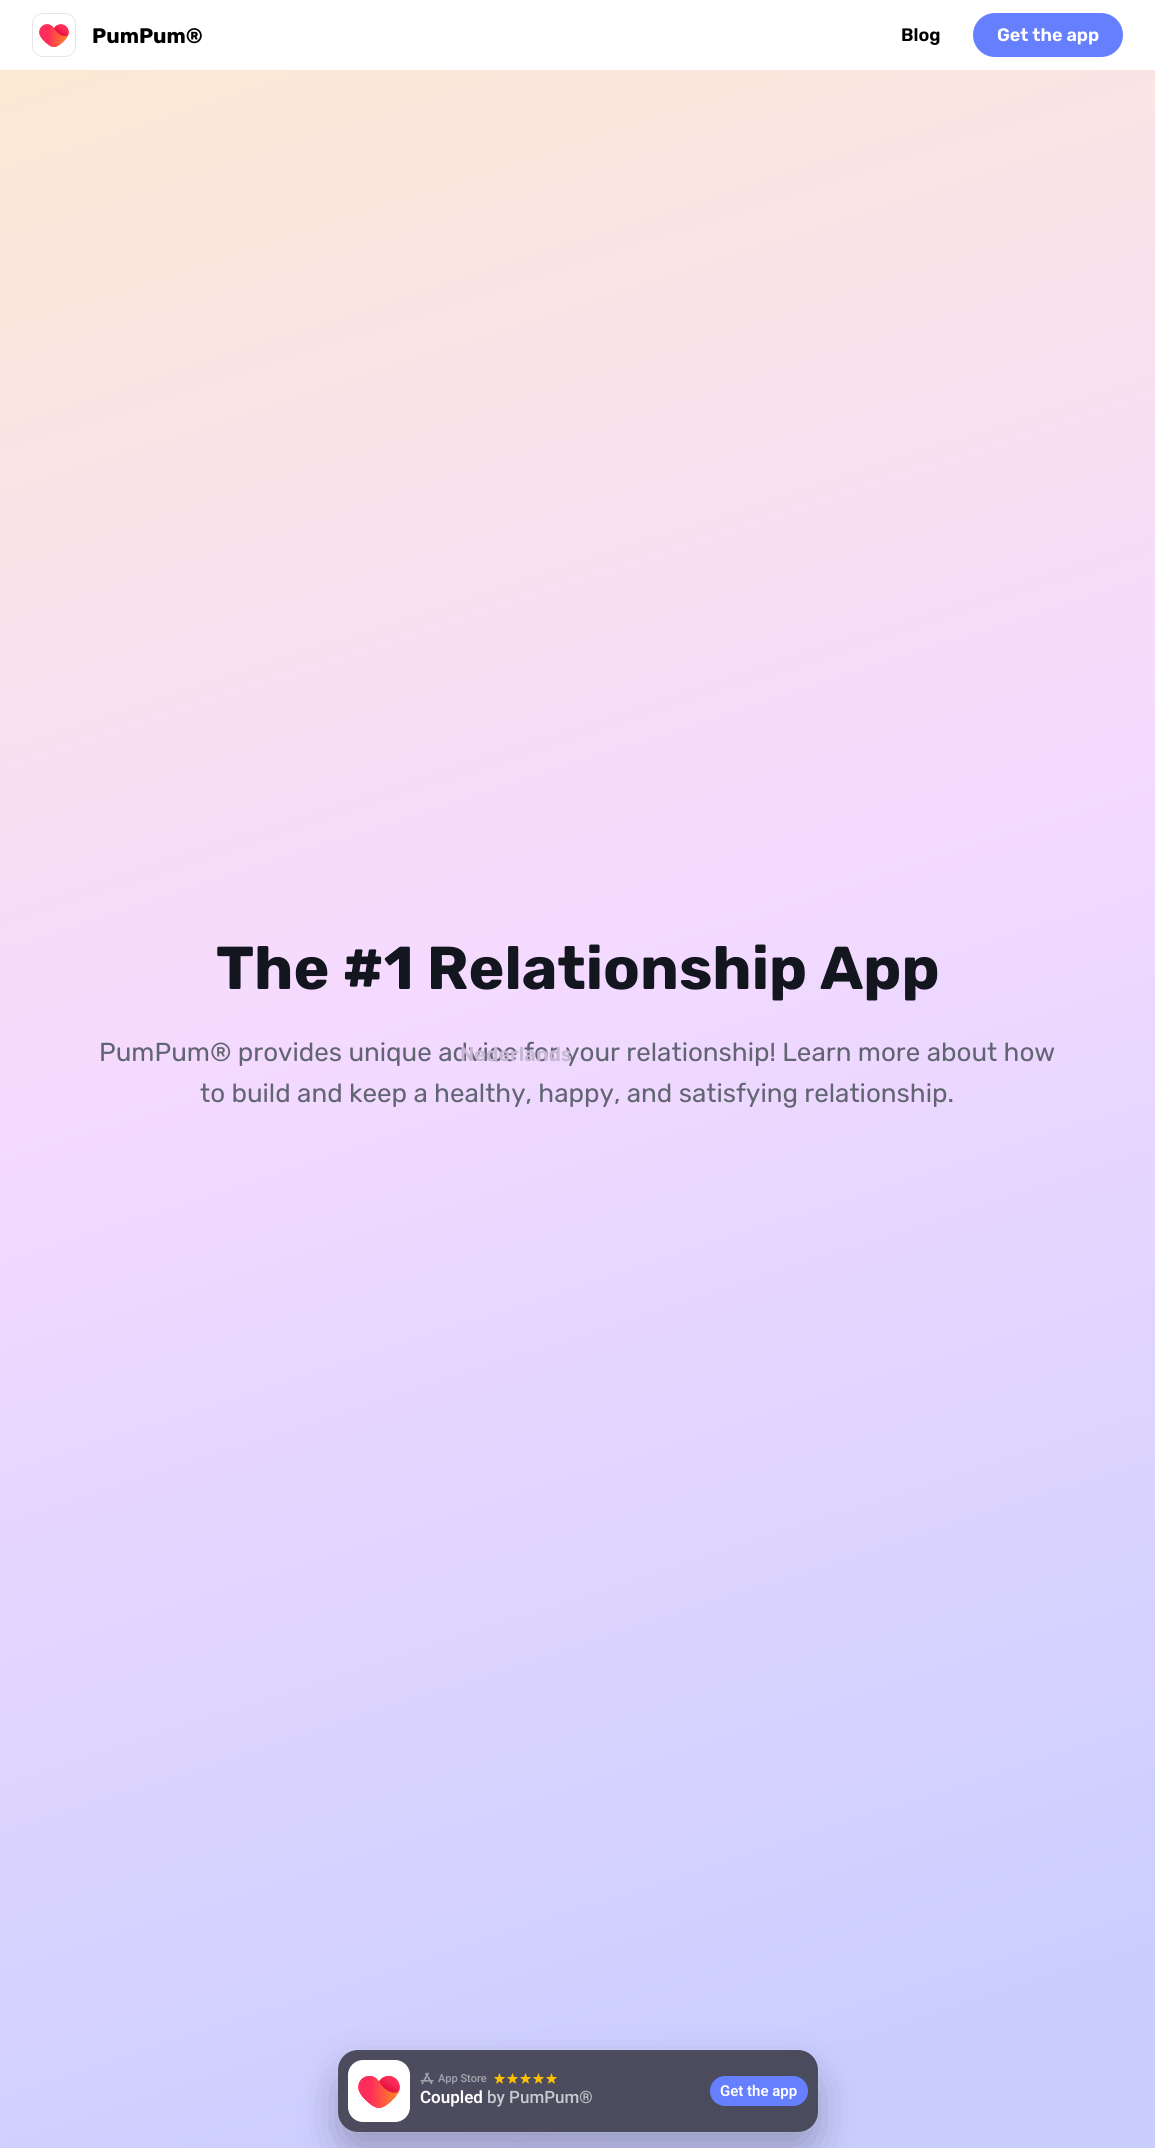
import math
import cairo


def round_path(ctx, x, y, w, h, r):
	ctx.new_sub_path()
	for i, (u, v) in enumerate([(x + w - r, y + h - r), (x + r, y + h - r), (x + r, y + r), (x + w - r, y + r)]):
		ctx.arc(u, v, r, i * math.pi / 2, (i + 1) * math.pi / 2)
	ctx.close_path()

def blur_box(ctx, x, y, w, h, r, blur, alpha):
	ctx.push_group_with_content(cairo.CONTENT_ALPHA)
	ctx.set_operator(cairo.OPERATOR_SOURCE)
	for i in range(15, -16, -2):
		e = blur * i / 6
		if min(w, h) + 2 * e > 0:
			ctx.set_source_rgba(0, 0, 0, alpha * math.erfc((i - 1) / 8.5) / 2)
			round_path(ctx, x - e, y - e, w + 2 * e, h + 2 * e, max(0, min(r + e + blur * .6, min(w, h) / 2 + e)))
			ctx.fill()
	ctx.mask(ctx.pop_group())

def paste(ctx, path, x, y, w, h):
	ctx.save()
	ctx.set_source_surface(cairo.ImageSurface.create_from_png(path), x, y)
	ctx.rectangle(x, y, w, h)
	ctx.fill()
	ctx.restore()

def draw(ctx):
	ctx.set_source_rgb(1, 1, 1)
	ctx.paint()
	paste(ctx, 'media/1.png', 39, 24, 30, 23)
	round_path(ctx, 32.5, 13.5, 43, 43, 10.5)
	ctx.set_source_rgb(0.902, 0.902, 0.902)
	ctx.set_line_width(1)
	ctx.stroke()
	ctx.select_font_face('Rubik', cairo.FONT_SLANT_NORMAL, cairo.FONT_WEIGHT_BOLD)
	ctx.set_font_size(21)
	ctx.set_source_rgb(0, 0, 0)
	ctx.move_to(92, 43)
	ctx.show_text('PumPum®')
	ctx.select_font_face('Rubik SemiBold')
	ctx.set_font_size(18)
	ctx.move_to(901, 41)
	ctx.show_text('Blog')
	ctx.set_source_rgb(0.4, 0.498, 1)
	round_path(ctx, 973, 13, 150, 44, 22)
	ctx.fill()
	ctx.set_source_rgb(1, 1, 1)
	ctx.move_to(997, 41)
	ctx.show_text('Get the app')
	gradient = cairo.LinearGradient(133, -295, 948, 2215)
	gradient.add_color_stop_rgba(0, 1, 0.937, 0.776, 1)
	gradient.add_color_stop_rgba(0.49, 0.961, 0.855, 1, 1)
	gradient.add_color_stop_rgba(0.94, 0.788, 0.808, 1, 1)
	ctx.set_source(gradient)
	ctx.rectangle(0, 70, 1155, 2078)
	ctx.fill()
	ctx.select_font_face('Rubik', cairo.FONT_SLANT_NORMAL, cairo.FONT_WEIGHT_BOLD)
	ctx.set_font_size(60.5)
	ctx.set_source_rgb(0.082, 0.086, 0.122)
	ctx.move_to(216, 989)
	ctx.show_text('The #1 Relationship App')
	ctx.select_font_face('Rubik')
	ctx.set_font_size(26)
	ctx.set_source_rgb(0.38, 0.392, 0.443)
	ctx.move_to(99, 1061)
	ctx.show_text('PumPum® provides unique advice for your relationship! Learn more about how')
	ctx.move_to(200, 1102)
	ctx.show_text('to build and keep a healthy, happy, and satisfying relationship.')
	ctx.select_font_face('Rubik SemiBold')
	ctx.set_font_size(20)
	ctx.set_source_rgb(0.78, 0.718, 0.835)
	ctx.move_to(460, 1061)
	ctx.show_text('Nederlands')
	ctx.save()
	ctx.set_fill_rule(cairo.FILL_RULE_EVEN_ODD)
	ctx.new_path()
	ctx.move_to(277, 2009)
	ctx.line_to(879, 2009)
	ctx.line_to(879, 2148)
	ctx.line_to(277, 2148)
	ctx.close_path()
	ctx.move_to(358, 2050)
	ctx.line_to(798, 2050)
	ctx.curve_to(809, 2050, 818, 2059, 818, 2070)
	ctx.line_to(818, 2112)
	ctx.curve_to(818, 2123, 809, 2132, 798, 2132)
	ctx.line_to(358, 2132)
	ctx.curve_to(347, 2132, 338, 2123, 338, 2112)
	ctx.line_to(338, 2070)
	ctx.curve_to(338, 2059, 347, 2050, 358, 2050)
	ctx.close_path()
	ctx.clip()
	ctx.set_source_rgb(0.118, 0.106, 0.157)
	blur_box(ctx, 338, 2070, 480, 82, 20, 20, 0.3)
	ctx.restore()
	round_path(ctx, 337.5, 2049.5, 481, 83, 20.5)
	ctx.set_source_rgba(1, 1, 1, 0.1)
	ctx.stroke()
	ctx.set_source_rgba(0.086, 0.082, 0.106, 0.7)
	round_path(ctx, 338, 2050, 480, 82, 20)
	ctx.fill()
	paste(ctx, 'media/2.png', 348, 2060, 62, 62)
	paste(ctx, 'media/3.png', 420, 2072, 14, 13)
	ctx.select_font_face('Roboto Medium')
	ctx.set_font_size(11)
	ctx.set_source_rgb(0.651, 0.651, 0.686)
	ctx.move_to(438, 2082)
	ctx.show_text('App Store')
	paste(ctx, 'media/4.png', 494, 2073, 11, 11)
	paste(ctx, 'media/4.png', 507, 2073, 11, 11)
	paste(ctx, 'media/4.png', 520, 2073, 11, 11)
	paste(ctx, 'media/5.png', 533, 2073, 11, 11)
	paste(ctx, 'media/6.png', 546, 2073, 11, 11)
	ctx.select_font_face('Roboto SemiBold')
	ctx.set_font_size(17)
	ctx.set_source_rgb(1, 1, 1)
	ctx.move_to(420, 2103)
	ctx.show_text('Coupled')
	ctx.select_font_face('Roboto Medium')
	ctx.set_source_rgb(0.788, 0.792, 0.812)
	ctx.move_to(487, 2103)
	ctx.show_text('by PumPum®')
	ctx.set_source_rgb(0.4, 0.498, 1)
	round_path(ctx, 710, 2076, 98, 30, 15)
	ctx.fill()
	ctx.select_font_face('Roboto SemiBold')
	ctx.set_font_size(15)
	ctx.set_source_rgb(1, 1, 1)
	ctx.move_to(720, 2096)
	ctx.show_text('Get the app')


surface = cairo.ImageSurface(cairo.FORMAT_RGB24, 1155, 2148)
ctx = cairo.Context(surface)
options = cairo.FontOptions()
options.set_hint_metrics(cairo.HINT_METRICS_OFF)
options.set_hint_style(cairo.HINT_STYLE_NONE)
ctx.set_font_options(options)
ctx.set_miter_limit(4)
draw(ctx)
surface.write_to_png('image.png')
